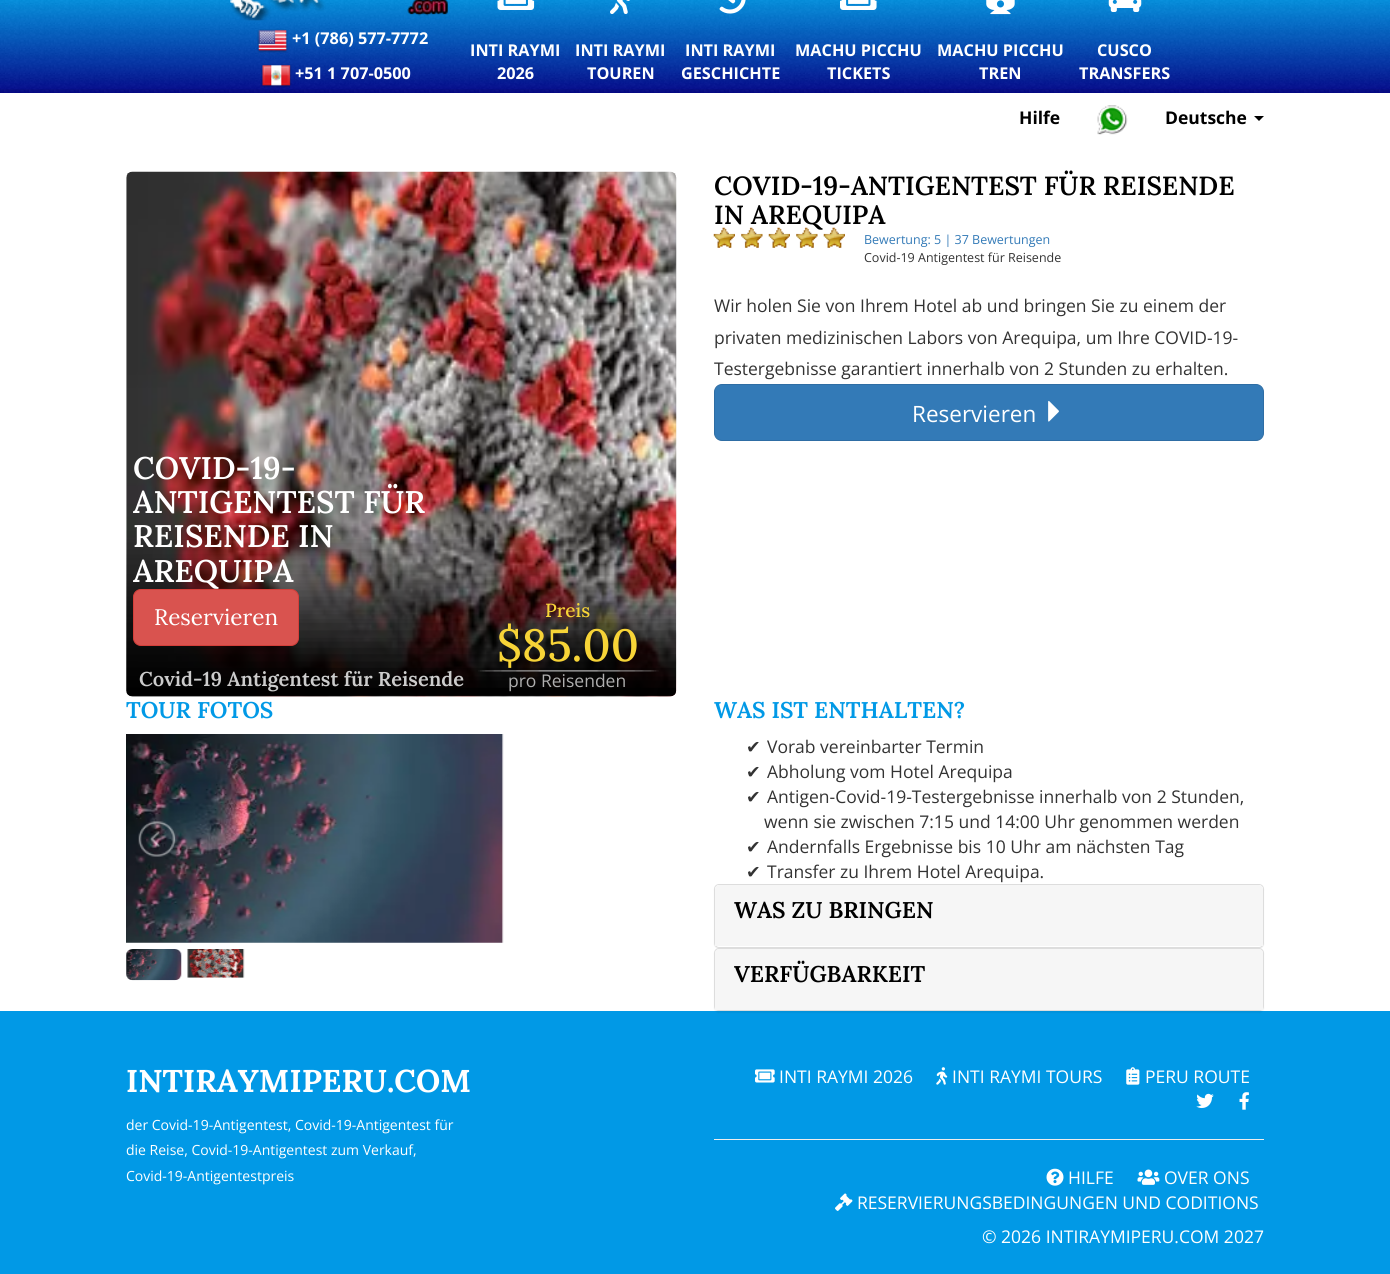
import math
import cairo


def round_path(ctx, x, y, w, h, r):
	ctx.new_sub_path()
	for i, (u, v) in enumerate([(x + w - r, y + h - r), (x + r, y + h - r), (x + r, y + r), (x + w - r, y + r)]):
		ctx.arc(u, v, r, i * math.pi / 2, (i + 1) * math.pi / 2)
	ctx.close_path()

def blur_box(ctx, x, y, w, h, r, blur, alpha):
	ctx.push_group_with_content(cairo.CONTENT_ALPHA)
	ctx.set_operator(cairo.OPERATOR_SOURCE)
	for i in range(15, -16, -2):
		e = blur * i / 6
		if min(w, h) + 2 * e > 0:
			ctx.set_source_rgba(0, 0, 0, alpha * math.erfc((i - 1) / 8.5) / 2)
			round_path(ctx, x - e, y - e, w + 2 * e, h + 2 * e, max(0, min(r + e + blur * .6, min(w, h) / 2 + e)))
			ctx.fill()
	ctx.mask(ctx.pop_group())

def paste(ctx, path, x, y, w, h):
	ctx.save()
	ctx.set_source_surface(cairo.ImageSurface.create_from_png(path), x, y)
	ctx.rectangle(x, y, w, h)
	ctx.fill()
	ctx.restore()

def draw(ctx):
	ctx.set_source_rgb(1, 1, 1)
	ctx.paint()
	gradient = cairo.LinearGradient(695, -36, 695, 93)
	gradient.add_color_stop_rgba(0, 0, 0.769, 1, 1)
	gradient.add_color_stop_rgba(1, 0, 0.016, 0.537, 1)
	ctx.set_source(gradient)
	ctx.rectangle(0, 0, 1390, 93)
	ctx.fill()
	paste(ctx, 'media/1.png', 0, 0, 1390, 93)
	ctx.set_source_rgba(0, 0, 0, 0.05)
	ctx.rectangle(0, 89, 1390, 4)
	ctx.fill()
	paste(ctx, 'media/2.png', 230, 0, 218, 21)
	paste(ctx, 'media/3.png', 257, 29, 31, 24)
	ctx.select_font_face('Open Sans', cairo.FONT_SLANT_NORMAL, cairo.FONT_WEIGHT_BOLD)
	ctx.set_font_size(16.25)
	ctx.set_source_rgb(1, 1, 1)
	ctx.move_to(292, 44)
	ctx.show_text('+1 (786) 577-7772')
	paste(ctx, 'media/4.png', 261, 64, 31, 24)
	ctx.move_to(295, 79)
	ctx.show_text('+51 1 707-0500')
	paste(ctx, 'media/5.png', 497, 0, 38, 10)
	ctx.move_to(470, 56)
	ctx.show_text('INTI RAYMI')
	ctx.move_to(497, 79)
	ctx.show_text('2026')
	paste(ctx, 'media/6.png', 610, 0, 20, 14)
	ctx.move_to(575, 56)
	ctx.show_text('INTI RAYMI')
	ctx.move_to(587, 79)
	ctx.show_text('TOUREN')
	paste(ctx, 'media/7.png', 719, 0, 27, 14)
	ctx.move_to(685, 56)
	ctx.show_text('INTI RAYMI')
	ctx.move_to(681, 79)
	ctx.show_text('GESCHICHTE')
	paste(ctx, 'media/8.png', 840, 0, 37, 10)
	ctx.move_to(795, 56)
	ctx.show_text('MACHU PICCHU')
	ctx.move_to(827, 79)
	ctx.show_text('TICKETS')
	paste(ctx, 'media/9.png', 986, 0, 29, 15)
	ctx.move_to(937, 56)
	ctx.show_text('MACHU PICCHU')
	ctx.move_to(979, 79)
	ctx.show_text('TREN')
	paste(ctx, 'media/10.png', 1108, 0, 34, 12)
	ctx.move_to(1097, 56)
	ctx.show_text('CUSCO')
	ctx.move_to(1079, 79)
	ctx.show_text('TRANSFERS')
	ctx.set_font_size(17.5)
	ctx.set_source_rgb(0, 0, 0)
	ctx.move_to(1019, 124)
	ctx.show_text('Hilfe')
	paste(ctx, 'media/11.png', 1097, 105, 31, 30)
	ctx.move_to(1165, 124)
	ctx.show_text('Deutsche')
	ctx.new_path()
	ctx.move_to(1254, 116)
	ctx.line_to(1264, 116)
	ctx.line_to(1259, 121)
	ctx.close_path()
	ctx.fill()
	ctx.select_font_face('Lora SemiBold')
	ctx.set_font_size(26.25)
	ctx.move_to(714, 195)
	ctx.show_text('COVID-19-ANTIGENTEST FÜR REISENDE')
	ctx.move_to(714, 224)
	ctx.show_text('IN AREQUIPA')
	paste(ctx, 'media/12.png', 713, 227, 22, 21)
	paste(ctx, 'media/13.png', 741, 227, 22, 21)
	paste(ctx, 'media/14.png', 768, 227, 22, 21)
	paste(ctx, 'media/15.png', 796, 227, 22, 21)
	paste(ctx, 'media/12.png', 823, 227, 22, 21)
	ctx.select_font_face('Open Sans')
	ctx.set_font_size(12.5)
	ctx.set_source_rgb(0.2, 0.478, 0.718)
	ctx.move_to(864, 244)
	ctx.show_text('Bewertung: 5 | 37 Bewertungen')
	ctx.set_source_rgb(0.2, 0.2, 0.2)
	ctx.move_to(864, 262)
	ctx.show_text('Covid-19 Antigentest für Reisende')
	ctx.set_font_size(17.5)
	for x, y, s in [
		(714, 312, 'Wir holen Sie von Ihrem Hotel ab und bringen Sie zu einem der'),
		(714, 344, 'privaten medizinischen Labors von Arequipa, um Ihre COVID-19-'),
		(714, 375, 'Testergebnisse garantiert innerhalb von 2 Stunden zu erhalten.'),
	]:
		ctx.move_to(x, y)
		ctx.show_text(s)
	ctx.set_source_rgb(0.2, 0.478, 0.718)
	round_path(ctx, 714.5, 384.5, 549, 56, 7.5)
	ctx.fill_preserve()
	ctx.set_source_rgb(0.18, 0.427, 0.643)
	ctx.set_line_width(1)
	ctx.stroke()
	ctx.set_font_size(22.5)
	ctx.set_source_rgb(1, 1, 1)
	ctx.move_to(912, 422)
	ctx.show_text('Reservieren')
	paste(ctx, 'media/16.png', 1048, 400, 11, 22)
	paste(ctx, 'media/17.png', 126, 171, 551, 526)
	paste(ctx, 'media/18.png', 126, 530, 551, 167)
	ctx.select_font_face('Lora SemiBold')
	ctx.set_font_size(31.25)
	for x, y, s in [
		(133, 479, 'COVID-19-'),
		(133, 513, 'ANTIGENTEST FÜR'),
		(133, 547, 'REISENDE IN'),
		(133, 582, 'AREQUIPA'),
	]:
		ctx.move_to(x, y)
		ctx.show_text(s)
	ctx.set_source_rgb(0.851, 0.325, 0.31)
	round_path(ctx, 133.5, 589.5, 165, 56, 7.5)
	ctx.fill_preserve()
	ctx.set_source_rgb(0.831, 0.247, 0.227)
	ctx.stroke()
	ctx.select_font_face('Lora')
	ctx.set_font_size(22.5)
	ctx.set_source_rgb(1, 1, 1)
	ctx.move_to(154, 625)
	ctx.show_text('Reservieren')
	ctx.select_font_face('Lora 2 SemiBold')
	ctx.set_font_size(20)
	ctx.set_source_rgb(0.8, 0.8, 0.8)
	ctx.move_to(139, 686)
	ctx.show_text('Covid-19 Antigentest für Reisende')
	paste(ctx, 'media/19.png', 478, 670, 181, 2)
	ctx.select_font_face('Lora Medium')
	ctx.set_font_size(19)
	ctx.set_source_rgb(0.965, 0.831, 0.216)
	ctx.move_to(545, 617)
	ctx.show_text('Preis')
	ctx.set_font_size(45)
	ctx.move_to(497, 661)
	ctx.show_text('$85.00')
	ctx.select_font_face('Open Sans')
	ctx.set_font_size(17.5)
	ctx.set_source_rgb(0.686, 0.686, 0.686)
	ctx.move_to(508, 687)
	ctx.show_text('pro Reisenden')
	ctx.select_font_face('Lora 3 SemiBold')
	ctx.set_font_size(22.75)
	ctx.set_source_rgb(0.004, 0.6, 0.902)
	ctx.move_to(126, 718)
	ctx.show_text('TOUR FOTOS')
	paste(ctx, 'media/20.png', 126, 734, 378, 209)
	paste(ctx, 'media/21.png', 138, 821, 38, 36)
	paste(ctx, 'media/22.png', 126, 949, 56, 32)
	paste(ctx, 'media/23.png', 187, 949, 58, 29)
	ctx.move_to(714, 718)
	ctx.show_text('WAS IST ENTHALTEN?')
	ctx.select_font_face('DejaVu Sans')
	ctx.set_font_size(17.5)
	ctx.set_source_rgb(0.2, 0.2, 0.2)
	ctx.move_to(746, 753)
	ctx.show_text('✔')
	ctx.select_font_face('Open Sans')
	ctx.move_to(767, 753)
	ctx.show_text('Vorab vereinbarter Termin')
	ctx.select_font_face('DejaVu Sans')
	ctx.move_to(746, 778)
	ctx.show_text('✔')
	ctx.select_font_face('Open Sans')
	ctx.move_to(767, 778)
	ctx.show_text('Abholung vom Hotel Arequipa')
	ctx.select_font_face('DejaVu Sans')
	ctx.move_to(746, 803)
	ctx.show_text('✔')
	ctx.select_font_face('Open Sans')
	ctx.move_to(767, 803)
	ctx.show_text('Antigen-Covid-19-Testergebnisse innerhalb von 2 Stunden,')
	ctx.move_to(764, 828)
	ctx.show_text('wenn sie zwischen 7:15 und 14:00 Uhr genommen werden')
	ctx.select_font_face('DejaVu Sans')
	ctx.move_to(746, 853)
	ctx.show_text('✔')
	ctx.select_font_face('Open Sans')
	ctx.move_to(767, 853)
	ctx.show_text('Andernfalls Ergebnisse bis 10 Uhr am nächsten Tag')
	ctx.select_font_face('DejaVu Sans')
	ctx.move_to(746, 878)
	ctx.show_text('✔')
	ctx.select_font_face('Open Sans')
	ctx.move_to(767, 878)
	ctx.show_text('Transfer zu Ihrem Hotel Arequipa.')
	ctx.set_source_rgb(0, 0, 0)
	blur_box(ctx, 714, 885, 550, 64, 5, 0.5, 0.05)
	ctx.set_source_rgb(1, 1, 1)
	round_path(ctx, 714.5, 884.5, 549, 63, 4.5)
	ctx.fill_preserve()
	ctx.set_source_rgb(0.867, 0.867, 0.867)
	ctx.stroke()
	ctx.set_source_rgb(0.961, 0.961, 0.961)
	ctx.new_path()
	ctx.move_to(719, 885)
	ctx.line_to(1259, 885)
	ctx.curve_to(1261, 885, 1263, 887, 1263, 889)
	ctx.line_to(1263, 946)
	ctx.line_to(715, 946)
	ctx.line_to(715, 889)
	ctx.curve_to(715, 887, 717, 885, 719, 885)
	ctx.close_path()
	ctx.fill()
	ctx.select_font_face('Lora 3 SemiBold')
	ctx.set_font_size(22.75)
	ctx.set_source_rgb(0, 0, 0)
	ctx.move_to(734, 918)
	ctx.show_text('WAS ZU BRINGEN')
	ctx.set_source_rgb(0.004, 0.6, 0.902)
	ctx.rectangle(0, 1011, 1390, 263)
	ctx.fill()
	ctx.set_source_rgb(0, 0, 0)
	blur_box(ctx, 714, 949, 550, 64, 5, 0.5, 0.05)
	round_path(ctx, 714.5, 948.5, 549, 62, 4.5)
	ctx.set_source_rgb(0.867, 0.867, 0.867)
	ctx.stroke()
	ctx.set_source_rgb(0.961, 0.961, 0.961)
	ctx.new_path()
	ctx.move_to(719, 949)
	ctx.line_to(1259, 949)
	ctx.curve_to(1261, 949, 1263, 951, 1263, 953)
	ctx.line_to(1263, 1010)
	ctx.line_to(715, 1010)
	ctx.line_to(715, 953)
	ctx.curve_to(715, 951, 717, 949, 719, 949)
	ctx.close_path()
	ctx.fill()
	ctx.set_source_rgb(0, 0, 0)
	ctx.move_to(734, 982)
	ctx.show_text('VERFÜGBARKEIT')
	ctx.select_font_face('Lora', cairo.FONT_SLANT_NORMAL, cairo.FONT_WEIGHT_BOLD)
	ctx.set_font_size(31.5)
	ctx.set_source_rgb(1, 1, 1)
	ctx.move_to(126, 1092)
	ctx.show_text('INTIRAYMIPERU.COM')
	ctx.select_font_face('Open Sans')
	ctx.set_font_size(14)
	for x, y, s in [
		(126, 1130, 'der Covid-19-Antigentest, Covid-19-Antigentest für'),
		(126, 1155, 'die Reise, Covid-19-Antigentest zum Verkauf,'),
		(126, 1181, 'Covid-19-Antigentestpreis'),
	]:
		ctx.move_to(x, y)
		ctx.show_text(s)
	paste(ctx, 'media/24.png', 755, 1069, 20, 14)
	ctx.set_font_size(17.5)
	ctx.move_to(779, 1083)
	ctx.show_text('INTI RAYMI 2026')
	paste(ctx, 'media/25.png', 936, 1067, 12, 18)
	ctx.move_to(952, 1083)
	ctx.show_text('INTI RAYMI TOURS')
	paste(ctx, 'media/26.png', 1126, 1067, 14, 18)
	ctx.move_to(1145, 1083)
	ctx.show_text('PERU ROUTE')
	paste(ctx, 'media/27.png', 1196, 1093, 18, 16)
	paste(ctx, 'media/28.png', 1239, 1092, 10, 18)
	ctx.set_source_rgb(0.933, 0.933, 0.933)
	ctx.rectangle(714, 1139, 550, 1)
	ctx.fill()
	paste(ctx, 'media/29.png', 1046, 1168, 18, 18)
	ctx.set_source_rgb(1, 1, 1)
	ctx.move_to(1068, 1184)
	ctx.show_text('HILFE')
	paste(ctx, 'media/30.png', 1137, 1169, 23, 16)
	ctx.move_to(1164, 1184)
	ctx.show_text('OVER ONS')
	paste(ctx, 'media/31.png', 835, 1193, 18, 18)
	ctx.move_to(857, 1209)
	ctx.show_text('RESERVIERUNGSBEDINGUNGEN UND CODITIONS')
	ctx.move_to(982, 1243)
	ctx.show_text('© 2026 INTIRAYMIPERU.COM 2027')


surface = cairo.ImageSurface(cairo.FORMAT_RGB24, 1390, 1274)
ctx = cairo.Context(surface)
options = cairo.FontOptions()
options.set_hint_metrics(cairo.HINT_METRICS_OFF)
options.set_hint_style(cairo.HINT_STYLE_NONE)
ctx.set_font_options(options)
ctx.set_miter_limit(4)
draw(ctx)
surface.write_to_png('image.png')
